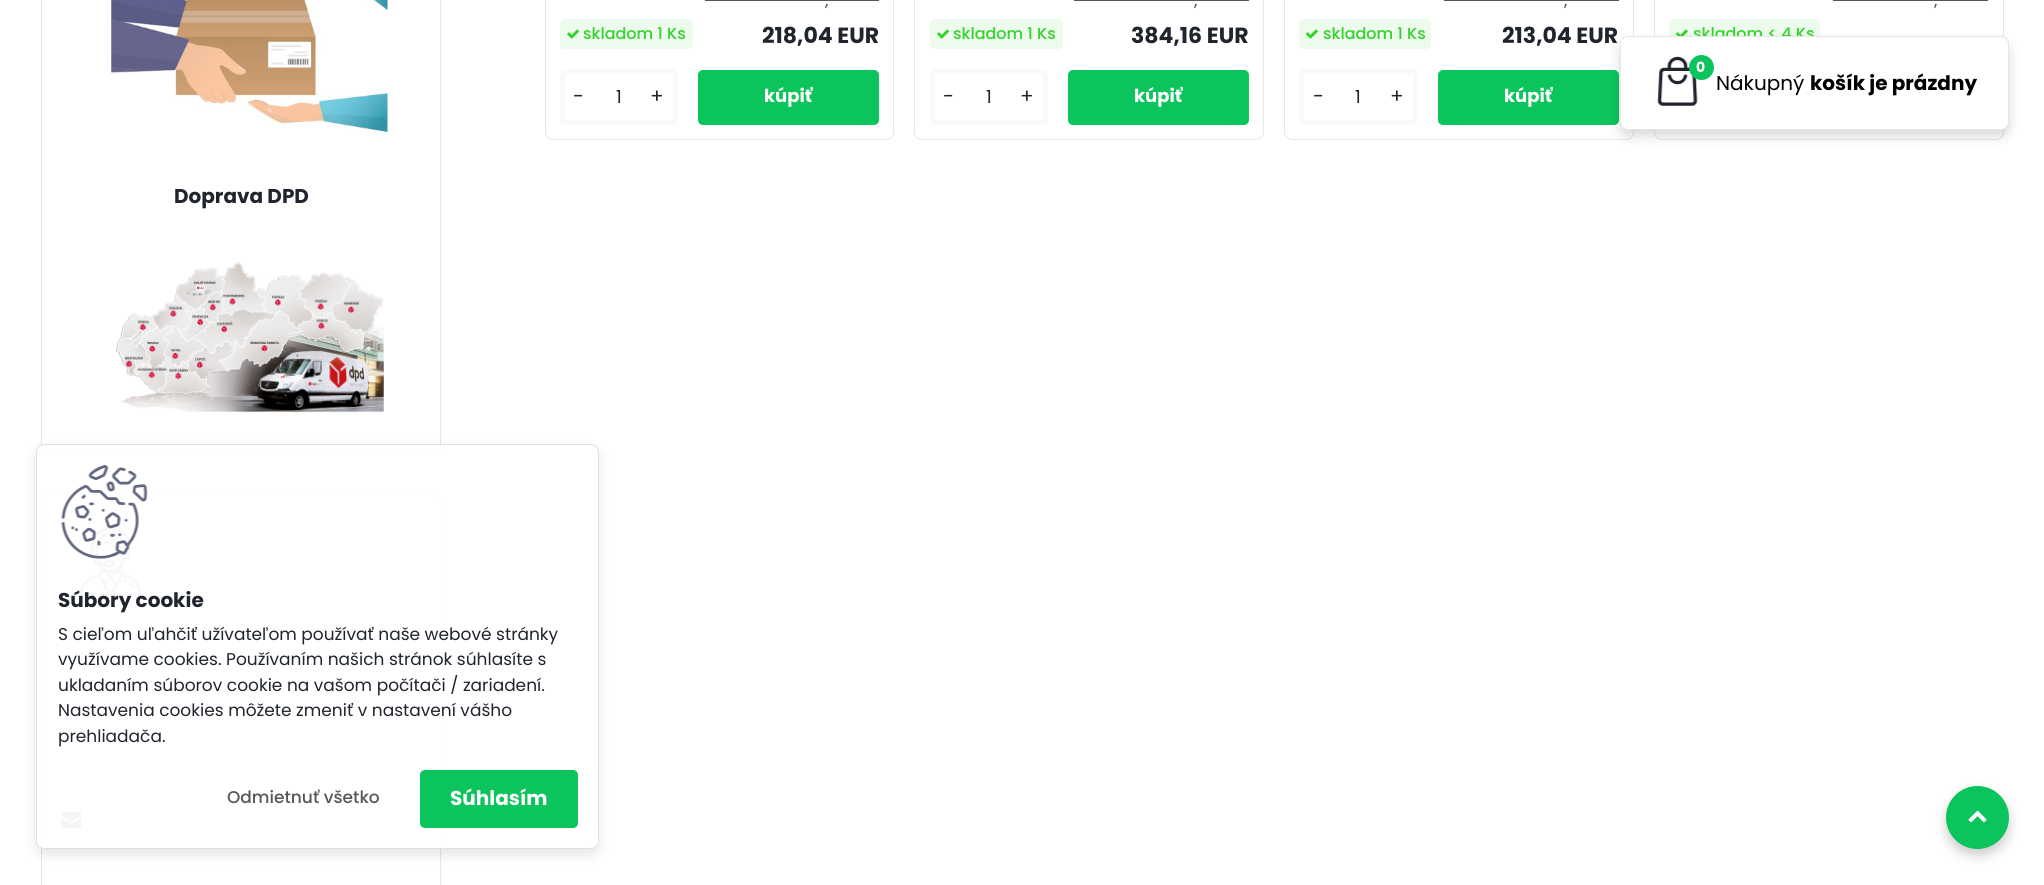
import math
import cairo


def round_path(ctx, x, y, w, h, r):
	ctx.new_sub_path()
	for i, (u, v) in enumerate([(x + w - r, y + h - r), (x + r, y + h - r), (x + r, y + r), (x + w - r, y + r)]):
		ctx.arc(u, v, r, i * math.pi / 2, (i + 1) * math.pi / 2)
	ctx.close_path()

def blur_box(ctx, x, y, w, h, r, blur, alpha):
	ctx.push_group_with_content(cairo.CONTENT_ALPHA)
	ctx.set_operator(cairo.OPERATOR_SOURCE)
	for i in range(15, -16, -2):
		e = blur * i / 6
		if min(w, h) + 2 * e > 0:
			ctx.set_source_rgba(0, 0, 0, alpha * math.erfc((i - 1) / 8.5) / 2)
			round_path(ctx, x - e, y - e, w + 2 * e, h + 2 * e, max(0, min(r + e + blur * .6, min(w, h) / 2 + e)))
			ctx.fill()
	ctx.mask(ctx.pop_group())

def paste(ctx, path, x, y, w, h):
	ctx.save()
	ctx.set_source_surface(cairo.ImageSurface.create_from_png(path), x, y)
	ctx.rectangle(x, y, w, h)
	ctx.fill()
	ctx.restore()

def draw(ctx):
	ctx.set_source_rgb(1, 1, 1)
	ctx.paint()
	round_path(ctx, 545.5, -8.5, 348, 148, 7.5)
	ctx.set_source_rgb(0.902, 0.902, 0.902)
	ctx.set_line_width(1)
	ctx.stroke()
	ctx.select_font_face('Poppins Medium')
	ctx.set_font_size(15)
	ctx.set_source_rgb(0.341, 0.341, 0.341)
	ctx.move_to(825, 6)
	ctx.show_text(',')
	ctx.rectangle(705, 0, 174, 1)
	ctx.fill()
	ctx.set_source_rgb(0.922, 0.984, 0.918)
	round_path(ctx, 560, 19, 133, 30, 5)
	ctx.fill()
	paste(ctx, 'media/1.png', 567, 29, 12, 10)
	ctx.set_font_size(16)
	ctx.set_source_rgb(0.204, 0.824, 0.184)
	ctx.move_to(583, 39)
	ctx.show_text('skladom 1 Ks')
	ctx.select_font_face('Poppins', cairo.FONT_SLANT_NORMAL, cairo.FONT_WEIGHT_BOLD)
	ctx.set_font_size(22)
	ctx.set_source_rgb(0.122, 0.141, 0.176)
	ctx.move_to(762, 43)
	ctx.show_text('218,04 EUR')
	round_path(ctx, 562.5, 71.5, 113, 51, 2.5)
	ctx.set_source_rgb(0.973, 0.973, 0.973)
	ctx.set_line_width(5)
	ctx.stroke()
	ctx.select_font_face('Poppins')
	ctx.set_font_size(20)
	ctx.set_source_rgb(0.122, 0.141, 0.176)
	ctx.move_to(573, 103)
	ctx.show_text('-')
	ctx.set_font_size(18)
	ctx.move_to(616, 103)
	ctx.show_text('1')
	ctx.set_font_size(20)
	ctx.move_to(650, 103)
	ctx.show_text('+')
	ctx.set_source_rgb(0.043, 0.769, 0.361)
	round_path(ctx, 698, 70, 181, 55, 5)
	ctx.fill()
	ctx.select_font_face('Poppins', cairo.FONT_SLANT_NORMAL, cairo.FONT_WEIGHT_BOLD)
	ctx.set_font_size(18)
	ctx.set_source_rgb(1, 1, 1)
	ctx.move_to(764, 102)
	ctx.show_text('kúpiť')
	round_path(ctx, 914.5, -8.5, 349, 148, 7.5)
	ctx.set_source_rgb(0.902, 0.902, 0.902)
	ctx.set_line_width(1)
	ctx.stroke()
	ctx.select_font_face('Poppins Medium')
	ctx.set_font_size(15)
	ctx.set_source_rgb(0.341, 0.341, 0.341)
	ctx.move_to(1194, 6)
	ctx.show_text(',')
	ctx.rectangle(1074, 0, 175, 1)
	ctx.fill()
	ctx.set_source_rgb(0.922, 0.984, 0.918)
	round_path(ctx, 930, 19, 133, 30, 5)
	ctx.fill()
	paste(ctx, 'media/1.png', 937, 29, 12, 10)
	ctx.set_font_size(16)
	ctx.set_source_rgb(0.204, 0.824, 0.184)
	ctx.move_to(953, 39)
	ctx.show_text('skladom 1 Ks')
	ctx.select_font_face('Poppins', cairo.FONT_SLANT_NORMAL, cairo.FONT_WEIGHT_BOLD)
	ctx.set_font_size(22)
	ctx.set_source_rgb(0.122, 0.141, 0.176)
	ctx.move_to(1131, 43)
	ctx.show_text('384,16 EUR')
	round_path(ctx, 932.5, 71.5, 113, 51, 2.5)
	ctx.set_source_rgb(0.973, 0.973, 0.973)
	ctx.set_line_width(5)
	ctx.stroke()
	ctx.select_font_face('Poppins')
	ctx.set_font_size(20)
	ctx.set_source_rgb(0.122, 0.141, 0.176)
	ctx.move_to(943, 103)
	ctx.show_text('-')
	ctx.set_font_size(18)
	ctx.move_to(986, 103)
	ctx.show_text('1')
	ctx.set_font_size(20)
	ctx.move_to(1020, 103)
	ctx.show_text('+')
	ctx.set_source_rgb(0.043, 0.769, 0.361)
	round_path(ctx, 1068, 70, 181, 55, 5)
	ctx.fill()
	ctx.select_font_face('Poppins', cairo.FONT_SLANT_NORMAL, cairo.FONT_WEIGHT_BOLD)
	ctx.set_font_size(18)
	ctx.set_source_rgb(1, 1, 1)
	ctx.move_to(1134, 102)
	ctx.show_text('kúpiť')
	round_path(ctx, 1284.5, -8.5, 349, 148, 7.5)
	ctx.set_source_rgb(0.902, 0.902, 0.902)
	ctx.set_line_width(1)
	ctx.stroke()
	ctx.select_font_face('Poppins Medium')
	ctx.set_font_size(15)
	ctx.set_source_rgb(0.341, 0.341, 0.341)
	ctx.move_to(1564, 6)
	ctx.show_text(',')
	ctx.rectangle(1444, 0, 175, 1)
	ctx.fill()
	ctx.set_source_rgb(0.922, 0.984, 0.918)
	round_path(ctx, 1299, 19, 132, 30, 5)
	ctx.fill()
	paste(ctx, 'media/2.png', 1306, 29, 12, 10)
	ctx.set_font_size(16)
	ctx.set_source_rgb(0.204, 0.824, 0.184)
	ctx.move_to(1323, 39)
	ctx.show_text('skladom 1 Ks')
	ctx.select_font_face('Poppins', cairo.FONT_SLANT_NORMAL, cairo.FONT_WEIGHT_BOLD)
	ctx.set_font_size(22)
	ctx.set_source_rgb(0.122, 0.141, 0.176)
	ctx.move_to(1502, 43)
	ctx.show_text('213,04 EUR')
	round_path(ctx, 1301.5, 71.5, 114, 51, 2.5)
	ctx.set_source_rgb(0.973, 0.973, 0.973)
	ctx.set_line_width(5)
	ctx.stroke()
	ctx.select_font_face('Poppins')
	ctx.set_font_size(20)
	ctx.set_source_rgb(0.122, 0.141, 0.176)
	ctx.move_to(1313, 103)
	ctx.show_text('-')
	ctx.set_font_size(18)
	ctx.move_to(1355, 103)
	ctx.show_text('1')
	ctx.set_font_size(20)
	ctx.move_to(1390, 103)
	ctx.show_text('+')
	ctx.set_source_rgb(0.043, 0.769, 0.361)
	round_path(ctx, 1438, 70, 181, 55, 5)
	ctx.fill()
	ctx.select_font_face('Poppins', cairo.FONT_SLANT_NORMAL, cairo.FONT_WEIGHT_BOLD)
	ctx.set_font_size(18)
	ctx.set_source_rgb(1, 1, 1)
	ctx.move_to(1504, 102)
	ctx.show_text('kúpiť')
	round_path(ctx, 1654.5, -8.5, 349, 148, 7.5)
	ctx.set_source_rgb(0.902, 0.902, 0.902)
	ctx.set_line_width(1)
	ctx.stroke()
	ctx.select_font_face('Poppins Medium')
	ctx.set_font_size(15)
	ctx.set_source_rgb(0.341, 0.341, 0.341)
	ctx.move_to(1934, 6)
	ctx.show_text(',')
	ctx.rectangle(1833, 0, 155, 1)
	ctx.fill()
	ctx.set_source_rgb(0.922, 0.984, 0.918)
	round_path(ctx, 1669, 19, 151, 30, 5)
	ctx.fill()
	paste(ctx, 'media/3.png', 1676, 29, 12, 7)
	ctx.set_font_size(16)
	ctx.set_source_rgb(0.204, 0.824, 0.184)
	ctx.move_to(1693, 39)
	ctx.show_text('skladom < 4 Ks')
	round_path(ctx, 41.5, -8.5, 399, 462, 7.5)
	ctx.set_source_rgb(0.902, 0.902, 0.902)
	ctx.stroke()
	paste(ctx, 'media/4.png', 111, 0, 277, 133)
	ctx.select_font_face('Poppins', cairo.FONT_SLANT_NORMAL, cairo.FONT_WEIGHT_BOLD)
	ctx.set_font_size(20)
	ctx.set_source_rgb(0.122, 0.141, 0.176)
	ctx.move_to(174, 203)
	ctx.show_text('Doprava DPD')
	paste(ctx, 'media/5.png', 116, 261, 268, 151)
	round_path(ctx, 41.5, 494.5, 399, 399, 7.5)
	ctx.set_source_rgb(0.902, 0.902, 0.902)
	ctx.stroke()
	ctx.set_source_rgb(0.973, 0.973, 0.973)
	round_path(ctx, 61, 514, 98, 105, 8)
	ctx.fill()
	paste(ctx, 'media/6.png', 79, 527, 63, 69)
	paste(ctx, 'media/7.png', 61, 811, 21, 17)
	ctx.set_source_rgb(0, 0, 0)
	blur_box(ctx, 1620, 43, 389, 93, 8, 6, 0.15)
	ctx.set_source_rgb(1, 1, 1)
	round_path(ctx, 1620, 36, 389, 94, 8)
	ctx.fill()
	round_path(ctx, 1620.5, 36.5, 388, 93, 7.5)
	ctx.set_source_rgba(0, 0, 0, 0.1)
	ctx.stroke()
	paste(ctx, 'media/8.png', 1657, 56, 41, 50)
	ctx.set_source_rgb(0.043, 0.769, 0.361)
	ctx.arc(1701.5, 67.5, 12.5, 0, 2 * math.pi)
	ctx.fill()
	ctx.set_font_size(14)
	ctx.set_source_rgb(1, 1, 1)
	ctx.move_to(1696, 72)
	ctx.show_text('0')
	ctx.select_font_face('Poppins')
	ctx.set_font_size(20)
	ctx.set_source_rgb(0, 0, 0)
	ctx.move_to(1716, 90)
	ctx.show_text('Nákupný')
	ctx.select_font_face('Poppins', cairo.FONT_SLANT_NORMAL, cairo.FONT_WEIGHT_BOLD)
	ctx.move_to(1810, 90)
	ctx.show_text('košík je prázdny')
	ctx.save()
	ctx.set_fill_rule(cairo.FILL_RULE_EVEN_ODD)
	ctx.new_path()
	ctx.move_to(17, 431)
	ctx.line_to(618, 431)
	ctx.line_to(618, 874)
	ctx.line_to(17, 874)
	ctx.close_path()
	ctx.move_to(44, 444)
	ctx.line_to(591, 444)
	ctx.curve_to(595.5, 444, 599, 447.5, 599, 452)
	ctx.line_to(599, 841)
	ctx.curve_to(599, 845.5, 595.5, 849, 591, 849)
	ctx.line_to(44, 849)
	ctx.curve_to(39.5, 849, 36, 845.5, 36, 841)
	ctx.line_to(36, 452)
	ctx.curve_to(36, 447.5, 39.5, 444, 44, 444)
	ctx.close_path()
	ctx.clip()
	ctx.set_source_rgb(0, 0, 0)
	blur_box(ctx, 36, 450, 563, 405, 8, 6, 0.1)
	ctx.restore()
	ctx.set_source_rgba(1, 1, 1, 0.95)
	round_path(ctx, 36.5, 444.5, 562, 404, 7.5)
	ctx.fill_preserve()
	ctx.set_source_rgb(0.878, 0.878, 0.878)
	ctx.stroke()
	paste(ctx, 'media/9.png', 61, 465, 87, 94)
	ctx.set_source_rgb(0.122, 0.141, 0.176)
	ctx.move_to(58, 607)
	ctx.show_text('Súbory cookie')
	ctx.select_font_face('Poppins')
	ctx.set_font_size(17)
	for x, y, s in [
		(58, 640, 'S cieľom uľahčiť užívateľom používať naše webové stránky'),
		(58, 665, 'využívame cookies. Používaním našich stránok súhlasíte s'),
		(58, 691, 'ukladaním súborov cookie na vašom počítači / zariadení.'),
		(58, 716, 'Nastavenia cookies môžete zmeniť v nastavení vášho'),
		(58, 742, 'prehliadača.'),
	]:
		ctx.move_to(x, y)
		ctx.show_text(s)
	ctx.select_font_face('Poppins Medium')
	ctx.set_source_rgb(0.341, 0.341, 0.341)
	ctx.move_to(227, 803)
	ctx.show_text('Odmietnuť všetko')
	ctx.set_source_rgb(0.043, 0.769, 0.361)
	round_path(ctx, 420, 770, 158, 58, 5)
	ctx.fill()
	ctx.select_font_face('Poppins', cairo.FONT_SLANT_NORMAL, cairo.FONT_WEIGHT_BOLD)
	ctx.set_font_size(20)
	ctx.set_source_rgb(1, 1, 1)
	ctx.move_to(450, 805)
	ctx.show_text('Súhlasím')
	ctx.set_source_rgb(0, 0, 0)
	blur_box(ctx, 1946, 793, 63, 62, 31, 6, 0.2)
	ctx.set_source_rgb(0.043, 0.769, 0.361)
	ctx.arc(1977.5, 817.5, 31.5, 0, 2 * math.pi)
	ctx.fill()
	paste(ctx, 'media/10.png', 1968, 810, 19, 13)


surface = cairo.ImageSurface(cairo.FORMAT_RGB24, 2044, 885)
ctx = cairo.Context(surface)
options = cairo.FontOptions()
options.set_hint_metrics(cairo.HINT_METRICS_OFF)
options.set_hint_style(cairo.HINT_STYLE_NONE)
ctx.set_font_options(options)
ctx.set_miter_limit(4)
draw(ctx)
surface.write_to_png('image.png')
